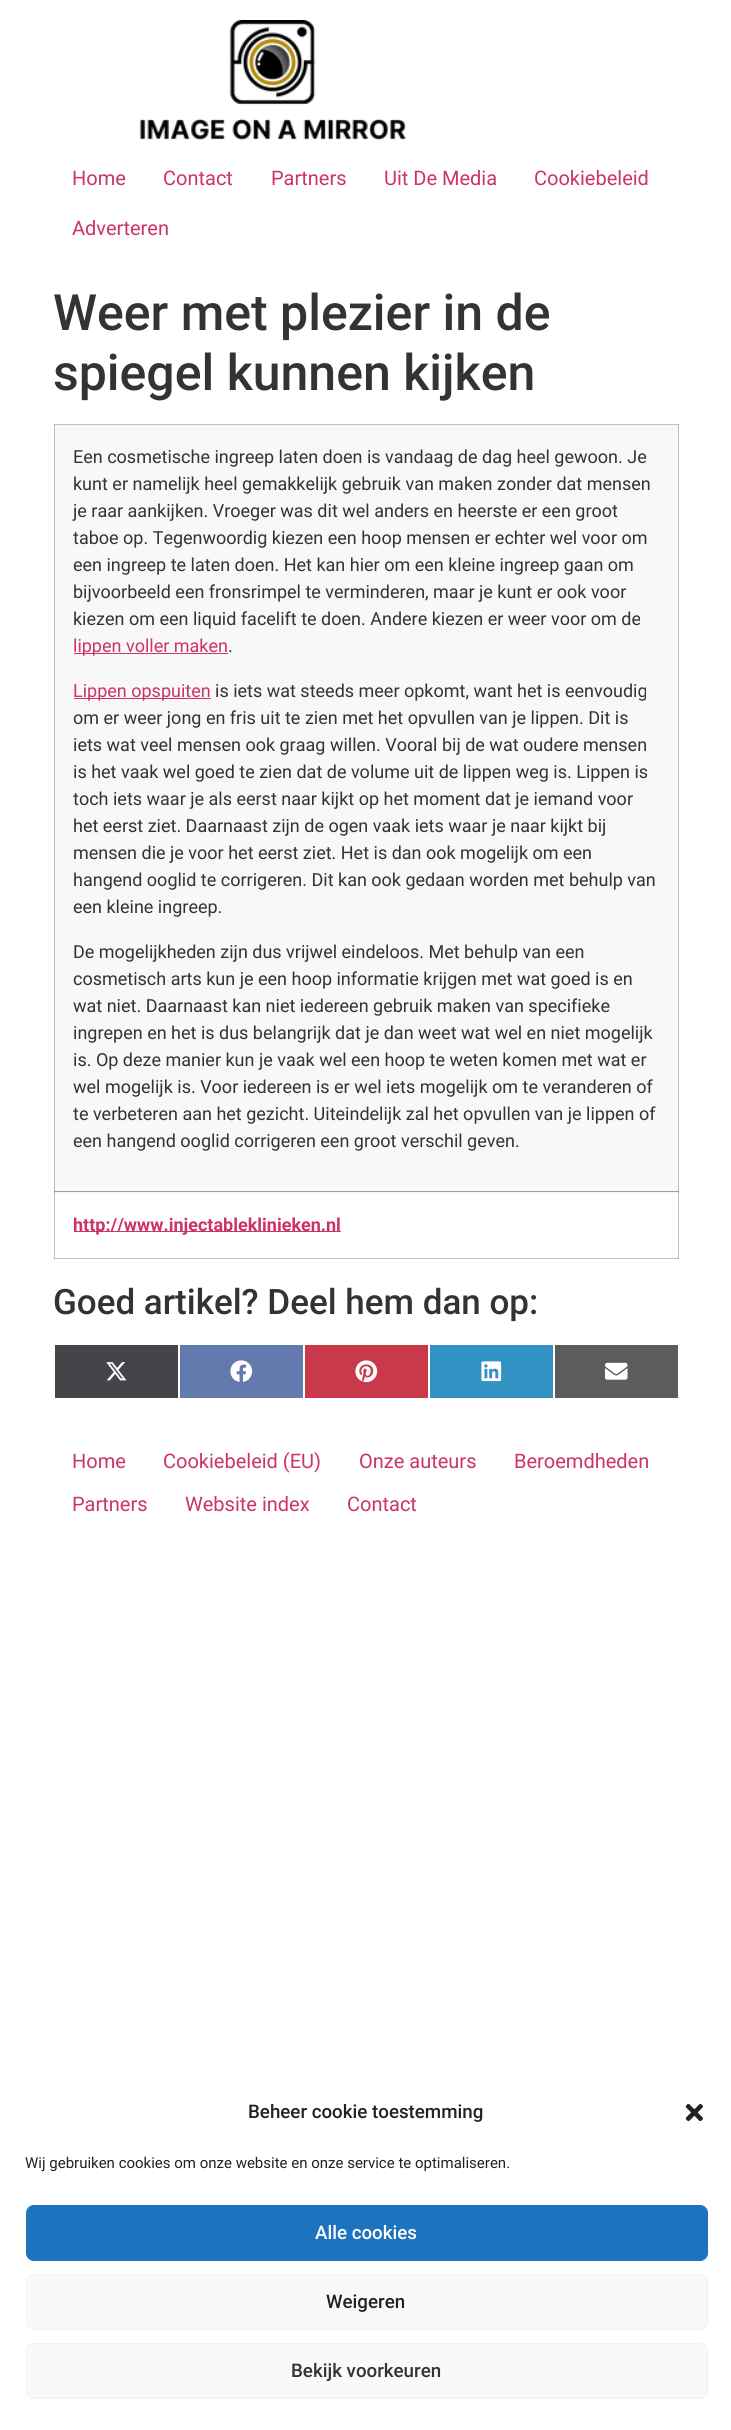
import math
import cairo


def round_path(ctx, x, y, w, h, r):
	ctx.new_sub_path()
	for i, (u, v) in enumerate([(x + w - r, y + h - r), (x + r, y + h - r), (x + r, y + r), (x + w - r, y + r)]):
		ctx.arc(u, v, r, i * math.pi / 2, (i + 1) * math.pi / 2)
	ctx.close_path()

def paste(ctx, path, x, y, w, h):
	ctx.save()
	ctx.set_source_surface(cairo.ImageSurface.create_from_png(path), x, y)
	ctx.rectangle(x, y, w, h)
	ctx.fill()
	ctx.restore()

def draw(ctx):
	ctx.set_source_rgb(1, 1, 1)
	ctx.paint()
	ctx.set_source_rgb(0.753, 0.753, 0.753)
	ctx.rectangle(678, 424, 1, 769)
	ctx.rectangle(54, 1191, 1, 68)
	ctx.rectangle(54, 1258, 625, 1)
	ctx.fill()
	ctx.set_source_rgb(0.627, 0.627, 0.627)
	ctx.rectangle(54, 1258, 1, 1)
	ctx.fill()
	ctx.set_source_rgb(0.753, 0.753, 0.753)
	ctx.rectangle(678, 1191, 1, 68)
	ctx.fill()
	ctx.set_source_rgb(0.627, 0.627, 0.627)
	ctx.rectangle(678, 1191, 1, 2)
	ctx.rectangle(678, 1258, 1, 1)
	ctx.fill()
	ctx.set_source_rgb(0.533, 0.533, 0.533)
	ctx.rectangle(678, 1191, 1, 1)
	ctx.fill()
	paste(ctx, 'media/1.png', 139, 20, 268, 121)
	ctx.select_font_face('Roboto')
	ctx.set_font_size(20)
	ctx.set_source_rgb(0.8, 0.2, 0.4)
	for x, y, s in [
		(72, 185, 'Home'),
		(163, 185, 'Contact'),
		(271, 185, 'Partners'),
		(384, 185, 'Uit De Media'),
		(534, 185, 'Cookiebeleid'),
		(72, 235, 'Adverteren'),
	]:
		ctx.move_to(x, y)
		ctx.show_text(s)
	ctx.select_font_face('Roboto Medium')
	ctx.set_font_size(50)
	ctx.set_source_rgb(0.2, 0.2, 0.2)
	ctx.move_to(53, 330)
	ctx.show_text('Weer met plezier in de')
	ctx.move_to(53, 390)
	ctx.show_text('spiegel kunnen kijken')
	ctx.set_source_rgb(0.969, 0.969, 0.969)
	ctx.rectangle(55, 425, 623, 768)
	ctx.fill()
	ctx.set_source_rgb(0.737, 0.737, 0.737)
	ctx.rectangle(54, 425, 1, 768)
	ctx.fill()
	ctx.set_source_rgb(0.62, 0.62, 0.62)
	ctx.rectangle(54, 1191, 1, 2)
	ctx.rectangle(54, 1191, 624, 1)
	ctx.fill()
	ctx.set_source_rgb(0.533, 0.533, 0.533)
	ctx.rectangle(54, 1191, 1, 1)
	ctx.fill()
	ctx.set_source_rgb(0.753, 0.753, 0.753)
	ctx.rectangle(54, 424, 625, 1)
	ctx.fill()
	ctx.set_source_rgb(0.627, 0.627, 0.627)
	ctx.rectangle(54, 424, 1, 1)
	ctx.rectangle(678, 424, 1, 1)
	ctx.fill()
	ctx.select_font_face('Roboto')
	ctx.set_font_size(18)
	ctx.set_source_rgb(0.2, 0.2, 0.2)
	for x, y, s in [
		(73, 463, 'Een cosmetische ingreep laten doen is vandaag de dag heel gewoon. Je'),
		(73, 490, 'kunt er namelijk heel gemakkelijk gebruik van maken zonder dat mensen'),
		(73, 517, 'je raar aankijken. Vroeger was dit wel anders en heerste er een groot'),
		(73, 544, 'taboe op. Tegenwoordig kiezen een hoop mensen er echter wel voor om'),
		(73, 571, 'een ingreep te laten doen. Het kan hier om een kleine ingreep gaan om'),
		(73, 598, 'bijvoorbeeld een fronsrimpel te verminderen, maar je kunt er ook voor'),
		(73, 625, 'kiezen om een liquid facelift te doen. Andere kiezen er weer voor om de'),
	]:
		ctx.move_to(x, y)
		ctx.show_text(s)
	ctx.set_source_rgb(0.8, 0.2, 0.4)
	ctx.rectangle(74, 653, 154, 1)
	ctx.fill()
	ctx.move_to(73, 652)
	ctx.show_text('lippen voller maken')
	ctx.set_source_rgb(0.2, 0.2, 0.2)
	ctx.move_to(228, 652)
	ctx.show_text('.')
	ctx.set_source_rgb(0.8, 0.2, 0.4)
	ctx.rectangle(74, 698, 137, 1)
	ctx.fill()
	ctx.move_to(73, 697)
	ctx.show_text('Lippen opspuiten')
	ctx.set_source_rgb(0.2, 0.2, 0.2)
	for x, y, s in [
		(215, 697, 'is iets wat steeds meer opkomt, want het is eenvoudig'),
		(73, 724, 'om er weer jong en fris uit te zien met het opvullen van je lippen. Dit is'),
		(73, 751, 'iets wat veel mensen ook graag willen. Vooral bij de wat oudere mensen'),
		(73, 778, 'is het vaak wel goed te zien dat de volume uit de lippen weg is. Lippen is'),
		(73, 805, 'toch iets waar je als eerst naar kijkt op het moment dat je iemand voor'),
		(73, 832, 'het eerst ziet. Daarnaast zijn de ogen vaak iets waar je naar kijkt bij'),
		(73, 859, 'mensen die je voor het eerst ziet. Het is dan ook mogelijk om een'),
		(73, 886, 'hangend ooglid te corrigeren. Dit kan ook gedaan worden met behulp van'),
		(73, 913, 'een kleine ingreep.'),
		(73, 958, 'De mogelijkheden zijn dus vrijwel eindeloos. Met behulp van een'),
		(73, 985, 'cosmetisch arts kun je een hoop informatie krijgen met wat goed is en'),
		(73, 1012, 'wat niet. Daarnaast kan niet iedereen gebruik maken van specifieke'),
		(73, 1039, 'ingrepen en het is dus belangrijk dat je dan weet wat wel en niet mogelijk'),
		(73, 1066, 'is. Op deze manier kun je vaak wel een hoop te weten komen met wat er'),
		(73, 1093, 'wel mogelijk is. Voor iedereen is er wel iets mogelijk om te veranderen of'),
		(73, 1120, 'te verbeteren aan het gezicht. Uiteindelijk zal het opvullen van je lippen of'),
		(73, 1147, 'een hangend ooglid corrigeren een groot verschil geven.'),
	]:
		ctx.move_to(x, y)
		ctx.show_text(s)
	ctx.set_source_rgb(0.8, 0.2, 0.4)
	ctx.rectangle(74, 1231, 267, 1)
	ctx.fill()
	ctx.select_font_face('Roboto', cairo.FONT_SLANT_NORMAL, cairo.FONT_WEIGHT_BOLD)
	ctx.move_to(73, 1231)
	ctx.show_text('http://www.injectableklinieken.nl')
	ctx.select_font_face('Roboto Medium')
	ctx.set_font_size(35)
	ctx.set_source_rgb(0.2, 0.2, 0.2)
	ctx.move_to(53, 1314)
	ctx.show_text('Goed artikel? Deel hem dan op:')
	ctx.set_source_rgb(0.263, 0.271, 0.282)
	ctx.rectangle(55, 1345, 123, 53)
	ctx.fill()
	paste(ctx, 'media/2.png', 106, 1362, 21, 19)
	ctx.set_source_rgb(0.384, 0.478, 0.678)
	ctx.rectangle(180, 1345, 123, 53)
	ctx.fill()
	paste(ctx, 'media/3.png', 230, 1360, 23, 22)
	ctx.set_source_rgb(0.792, 0.224, 0.286)
	ctx.rectangle(305, 1345, 123, 53)
	ctx.fill()
	paste(ctx, 'media/4.png', 355, 1360, 23, 23)
	ctx.set_source_rgb(0.2, 0.573, 0.769)
	ctx.rectangle(430, 1345, 123, 53)
	ctx.fill()
	paste(ctx, 'media/5.png', 481, 1361, 21, 21)
	ctx.set_source_rgb(0.361, 0.361, 0.361)
	ctx.rectangle(555, 1345, 123, 53)
	ctx.fill()
	paste(ctx, 'media/6.png', 605, 1362, 23, 18)
	ctx.select_font_face('Roboto')
	ctx.set_font_size(20)
	ctx.set_source_rgb(0.8, 0.2, 0.4)
	for x, y, s in [
		(72, 1468, 'Home'),
		(163, 1468, 'Cookiebeleid (EU)'),
		(359, 1468, 'Onze auteurs'),
		(514, 1468, 'Beroemdheden'),
		(72, 1511, 'Partners'),
		(185, 1511, 'Website index'),
		(347, 1511, 'Contact'),
	]:
		ctx.move_to(x, y)
		ctx.show_text(s)
	ctx.select_font_face('Roboto Medium')
	ctx.set_font_size(18.75)
	ctx.set_source_rgb(0.133, 0.133, 0.133)
	ctx.move_to(248, 2118)
	ctx.show_text('Beheer cookie toestemming')
	paste(ctx, 'media/7.png', 685, 2103, 18, 19)
	ctx.select_font_face('Roboto')
	ctx.set_font_size(15)
	ctx.move_to(25, 2168)
	ctx.show_text('Wij gebruiken cookies om onze website en onze service te optimaliseren.')
	ctx.set_source_rgb(0.118, 0.451, 0.745)
	round_path(ctx, 26.5, 2205.5, 681, 55, 7.5)
	ctx.fill_preserve()
	ctx.set_line_width(1)
	ctx.stroke()
	ctx.select_font_face('Roboto Medium')
	ctx.set_font_size(18.75)
	ctx.set_source_rgb(1, 1, 1)
	ctx.move_to(315, 2239)
	ctx.show_text('Alle cookies')
	ctx.set_source_rgb(0.976, 0.976, 0.976)
	round_path(ctx, 26.5, 2274.5, 681, 55, 7.5)
	ctx.fill_preserve()
	ctx.set_source_rgb(0.949, 0.949, 0.949)
	ctx.stroke()
	ctx.set_source_rgb(0.133, 0.133, 0.133)
	ctx.move_to(326, 2308)
	ctx.show_text('Weigeren')
	ctx.set_source_rgb(0.976, 0.976, 0.976)
	round_path(ctx, 26.5, 2343.5, 681, 55, 7.5)
	ctx.fill_preserve()
	ctx.set_source_rgb(0.949, 0.949, 0.949)
	ctx.stroke()
	ctx.set_source_rgb(0.2, 0.2, 0.2)
	ctx.move_to(291, 2377)
	ctx.show_text('Bekijk voorkeuren')


surface = cairo.ImageSurface(cairo.FORMAT_RGB24, 731, 2430)
ctx = cairo.Context(surface)
options = cairo.FontOptions()
options.set_hint_metrics(cairo.HINT_METRICS_OFF)
options.set_hint_style(cairo.HINT_STYLE_NONE)
ctx.set_font_options(options)
ctx.set_miter_limit(4)
draw(ctx)
surface.write_to_png('image.png')
